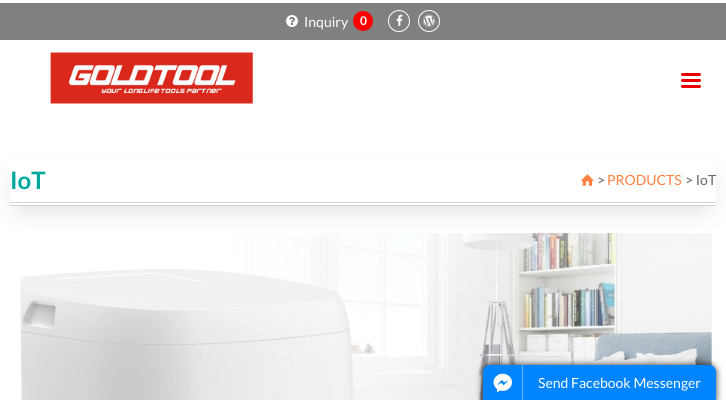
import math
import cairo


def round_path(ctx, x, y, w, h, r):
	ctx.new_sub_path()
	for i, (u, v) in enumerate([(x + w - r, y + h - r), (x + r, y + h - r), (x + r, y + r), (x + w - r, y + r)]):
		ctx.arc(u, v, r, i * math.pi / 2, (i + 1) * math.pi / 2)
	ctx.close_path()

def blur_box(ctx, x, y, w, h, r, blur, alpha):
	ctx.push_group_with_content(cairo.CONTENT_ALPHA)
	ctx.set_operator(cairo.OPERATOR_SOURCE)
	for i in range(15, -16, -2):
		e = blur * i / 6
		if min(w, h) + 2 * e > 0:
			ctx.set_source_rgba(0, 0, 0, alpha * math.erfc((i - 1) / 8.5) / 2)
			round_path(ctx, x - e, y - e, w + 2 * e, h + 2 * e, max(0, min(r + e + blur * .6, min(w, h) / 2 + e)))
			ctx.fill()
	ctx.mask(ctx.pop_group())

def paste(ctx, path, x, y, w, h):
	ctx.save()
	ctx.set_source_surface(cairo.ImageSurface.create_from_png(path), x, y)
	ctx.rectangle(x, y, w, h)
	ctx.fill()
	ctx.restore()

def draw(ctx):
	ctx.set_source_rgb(1, 1, 1)
	ctx.paint()
	ctx.set_source_rgb(0.502, 0.502, 0.502)
	ctx.rectangle(0, 3, 726, 37)
	ctx.fill()
	paste(ctx, 'media/1.png', 286, 15, 12, 12)
	ctx.select_font_face('Lato')
	ctx.set_font_size(14)
	ctx.set_source_rgb(1, 1, 1)
	ctx.move_to(304, 27)
	ctx.show_text('Inquiry')
	ctx.set_source_rgb(1, 0, 0)
	ctx.new_path()
	ctx.arc(363, 21, 10, 0, 2 * math.pi)
	ctx.fill()
	ctx.select_font_face('Lato', cairo.FONT_SLANT_NORMAL, cairo.FONT_WEIGHT_BOLD)
	ctx.set_font_size(12)
	ctx.set_source_rgb(1, 1, 1)
	ctx.move_to(360, 25)
	ctx.show_text('0')
	ctx.new_path()
	ctx.arc(399, 21, 10.5, 0, 2 * math.pi)
	ctx.set_line_width(1)
	ctx.stroke()
	paste(ctx, 'media/2.png', 396, 14, 7, 12)
	ctx.arc(429, 21, 10.5, 0, 2 * math.pi)
	ctx.stroke()
	paste(ctx, 'media/3.png', 423, 14, 12, 13)
	paste(ctx, 'media/4.png', 50, 52, 203, 52)
	ctx.set_source_rgb(0.918, 0, 0)
	round_path(ctx, 681, 85, 20, 3, 1.5)
	ctx.fill()
	round_path(ctx, 681, 73, 20, 3, 1.5)
	ctx.fill()
	round_path(ctx, 681, 79, 20, 3, 1.5)
	ctx.fill()
	ctx.save()
	ctx.set_fill_rule(cairo.FILL_RULE_EVEN_ODD)
	ctx.new_path()
	ctx.move_to(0, 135)
	ctx.line_to(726, 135)
	ctx.line_to(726, 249)
	ctx.line_to(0, 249)
	ctx.close_path()
	ctx.move_to(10, 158)
	ctx.line_to(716, 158)
	ctx.line_to(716, 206)
	ctx.line_to(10, 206)
	ctx.close_path()
	ctx.clip()
	ctx.set_source_rgb(0.8, 0.8, 0.8)
	blur_box(ctx, 23, 181, 680, 22, 0, 15, 1)
	ctx.restore()
	ctx.set_source_rgb(0.827, 0.827, 0.827)
	ctx.rectangle(10, 202, 706, 1)
	ctx.fill()
	ctx.rectangle(10, 205, 706, 1)
	ctx.fill()
	ctx.set_font_size(24)
	ctx.set_source_rgb(0, 0.659, 0.627)
	ctx.move_to(10, 189)
	ctx.show_text('IoT')
	paste(ctx, 'media/5.png', 581, 174, 13, 12)
	ctx.select_font_face('Lato')
	ctx.set_font_size(14)
	ctx.set_source_rgb(0.4, 0.4, 0.4)
	ctx.move_to(597, 185)
	ctx.show_text('>')
	ctx.set_source_rgb(1, 0.502, 0.251)
	ctx.move_to(607, 185)
	ctx.show_text('PRODUCTS')
	ctx.set_source_rgb(0.4, 0.4, 0.4)
	ctx.move_to(685, 185)
	ctx.show_text('> IoT')
	paste(ctx, 'media/6.png', 20, 232, 693, 168)
	ctx.set_source_rgb(0, 0, 0)
	blur_box(ctx, 483, 365, 233, 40, 7, 3.5, 0.8)
	ctx.set_source_rgb(0, 0.518, 1)
	ctx.new_path()
	ctx.move_to(490, 365)
	ctx.line_to(709, 365)
	ctx.curve_to(713, 365, 716, 368, 716, 372)
	ctx.line_to(716, 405)
	ctx.line_to(483, 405)
	ctx.line_to(483, 372)
	ctx.curve_to(483, 368, 486, 365, 490, 365)
	ctx.close_path()
	ctx.fill()
	ctx.set_source_rgb(0.404, 0.714, 1)
	ctx.rectangle(522, 365, 1, 35)
	ctx.fill()
	paste(ctx, 'media/7.png', 493, 373, 19, 20)
	ctx.set_source_rgb(1, 1, 1)
	ctx.move_to(538, 388)
	ctx.show_text('Send Facebook Messenger')


surface = cairo.ImageSurface(cairo.FORMAT_RGB24, 726, 400)
ctx = cairo.Context(surface)
options = cairo.FontOptions()
options.set_hint_metrics(cairo.HINT_METRICS_OFF)
options.set_hint_style(cairo.HINT_STYLE_NONE)
ctx.set_font_options(options)
ctx.set_miter_limit(4)
draw(ctx)
surface.write_to_png('image.png')
